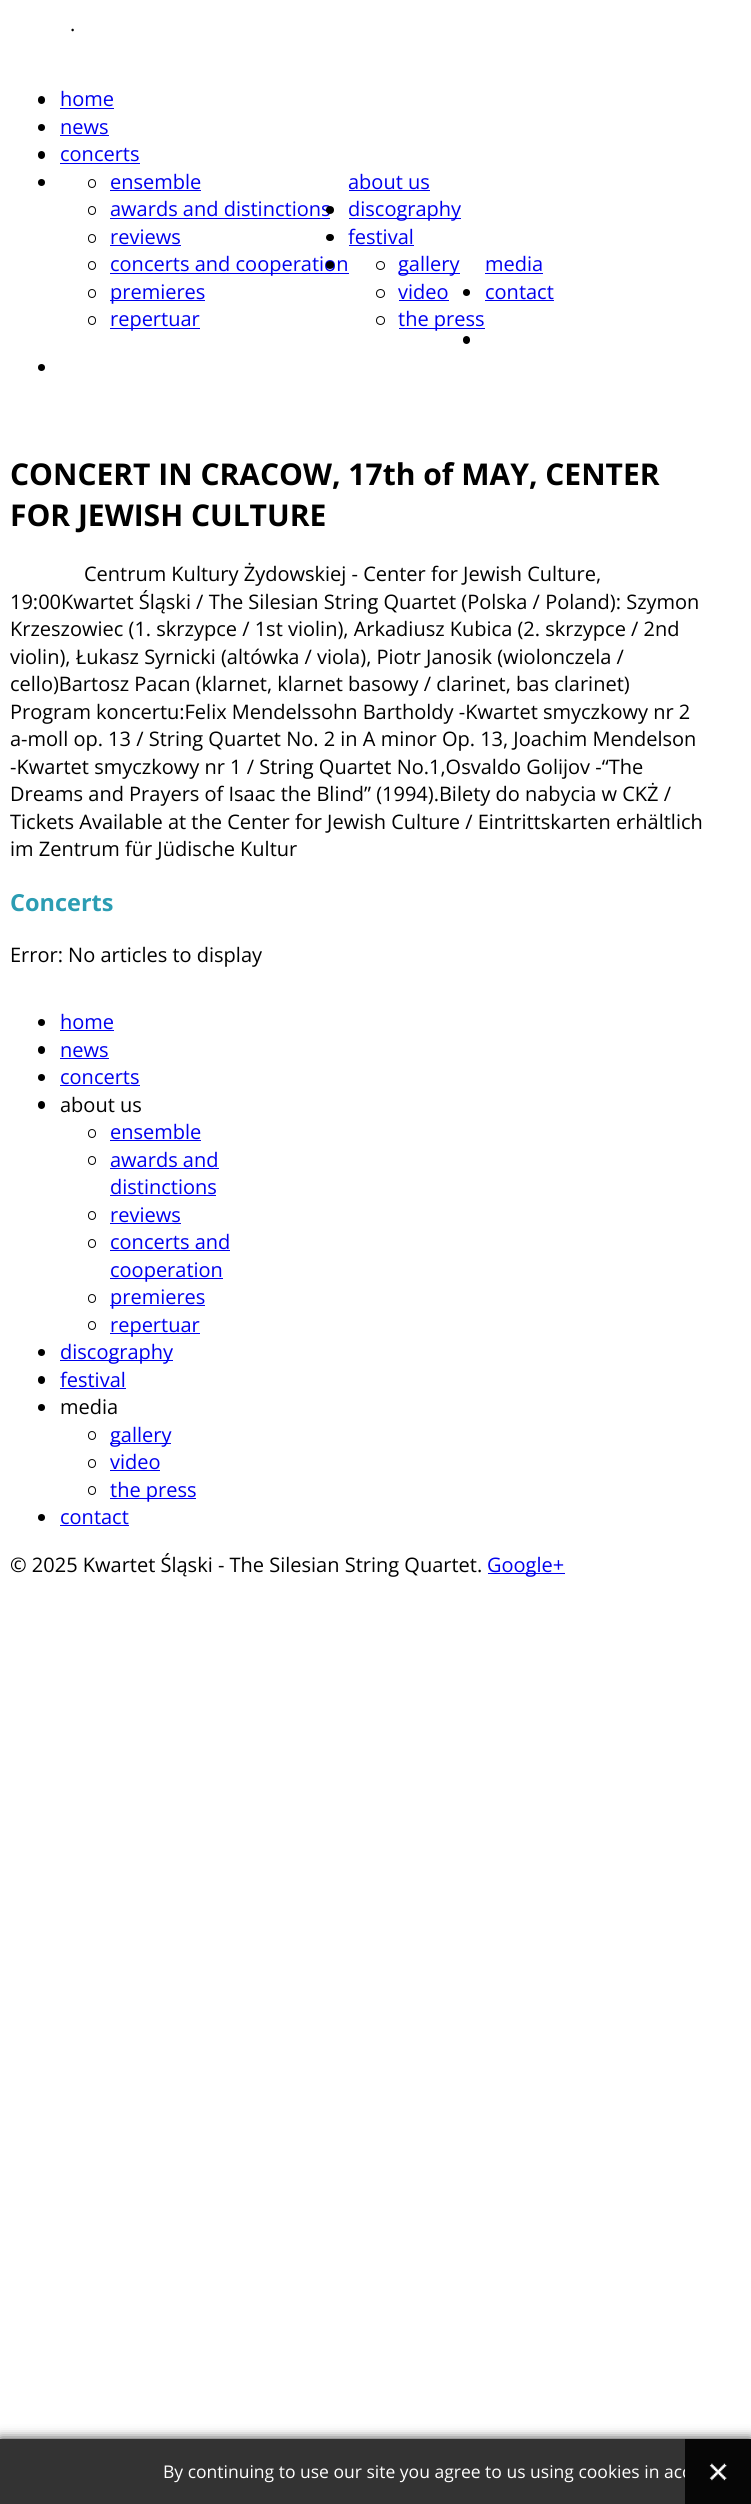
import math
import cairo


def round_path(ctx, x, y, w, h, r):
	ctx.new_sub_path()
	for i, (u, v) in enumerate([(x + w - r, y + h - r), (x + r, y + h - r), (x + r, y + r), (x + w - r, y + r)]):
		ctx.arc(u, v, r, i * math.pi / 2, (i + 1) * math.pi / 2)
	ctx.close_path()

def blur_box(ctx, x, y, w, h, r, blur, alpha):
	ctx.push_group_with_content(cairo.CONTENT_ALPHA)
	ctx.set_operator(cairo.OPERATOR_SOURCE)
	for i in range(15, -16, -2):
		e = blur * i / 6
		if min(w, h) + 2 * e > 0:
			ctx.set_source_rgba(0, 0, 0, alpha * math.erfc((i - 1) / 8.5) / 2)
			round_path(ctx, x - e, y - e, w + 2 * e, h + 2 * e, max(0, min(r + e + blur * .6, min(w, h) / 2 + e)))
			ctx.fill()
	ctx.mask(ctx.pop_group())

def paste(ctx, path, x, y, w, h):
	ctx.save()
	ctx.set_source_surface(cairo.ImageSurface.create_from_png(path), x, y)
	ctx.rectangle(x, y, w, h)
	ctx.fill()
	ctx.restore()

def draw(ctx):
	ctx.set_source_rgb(1, 1, 1)
	ctx.paint()
	ctx.select_font_face('Open Sans')
	ctx.set_font_size(20)
	ctx.set_source_rgb(0, 0, 0)
	ctx.move_to(70, 31)
	ctx.show_text('.')
	round_path(ctx, 38, 96, 7, 8, 3.5)
	ctx.fill()
	ctx.set_source_rgb(0, 0, 0.933)
	ctx.move_to(60, 106)
	ctx.show_text('home')
	ctx.rectangle(60, 108, 54, 1)
	ctx.fill()
	ctx.set_source_rgb(0, 0, 0)
	ctx.arc(41.5, 127.5, 3.5, 0, 2 * math.pi)
	ctx.fill()
	ctx.set_source_rgb(0, 0, 0.933)
	ctx.move_to(60, 134)
	ctx.show_text('news')
	ctx.rectangle(60, 135, 49, 1)
	ctx.fill()
	ctx.set_source_rgb(0, 0, 0)
	round_path(ctx, 38, 151, 7, 8, 3.5)
	ctx.fill()
	ctx.set_source_rgb(0, 0, 0.933)
	ctx.move_to(60, 161)
	ctx.show_text('concerts')
	ctx.rectangle(60, 163, 80, 1)
	ctx.fill()
	ctx.set_source_rgb(0, 0, 0)
	ctx.arc(41.5, 182.5, 3.5, 0, 2 * math.pi)
	ctx.fill()
	round_path(ctx, 88.5, 179.5, 7, 8, 3.5)
	ctx.set_line_width(1)
	ctx.stroke()
	ctx.set_source_rgb(0, 0, 0.933)
	ctx.move_to(110, 189)
	ctx.show_text('ensemble')
	ctx.rectangle(110, 190, 91, 1)
	ctx.fill()
	round_path(ctx, 88.5, 206.5, 7, 8, 3.5)
	ctx.set_source_rgb(0, 0, 0)
	ctx.stroke()
	ctx.set_source_rgb(0, 0, 0.933)
	ctx.move_to(110, 216)
	ctx.show_text('awards and distinctions')
	ctx.rectangle(110, 218, 220, 1)
	ctx.fill()
	round_path(ctx, 88.5, 234.5, 7, 8, 3.5)
	ctx.set_source_rgb(0, 0, 0)
	ctx.stroke()
	ctx.set_source_rgb(0, 0, 0.933)
	ctx.move_to(110, 244)
	ctx.show_text('reviews')
	ctx.rectangle(110, 245, 71, 1)
	ctx.fill()
	round_path(ctx, 88.5, 261.5, 7, 8, 3.5)
	ctx.set_source_rgb(0, 0, 0)
	ctx.stroke()
	ctx.set_source_rgb(0, 0, 0.933)
	ctx.rectangle(110, 273, 239, 1)
	ctx.fill()
	ctx.move_to(110, 271)
	ctx.show_text('concerts and cooperation')
	round_path(ctx, 88.5, 289.5, 7, 8, 3.5)
	ctx.set_source_rgb(0, 0, 0)
	ctx.stroke()
	ctx.set_source_rgb(0, 0, 0.933)
	ctx.rectangle(110, 300, 95, 1)
	ctx.fill()
	ctx.move_to(110, 299)
	ctx.show_text('premieres')
	round_path(ctx, 88.5, 316.5, 7, 8, 3.5)
	ctx.set_source_rgb(0, 0, 0)
	ctx.stroke()
	ctx.set_source_rgb(0, 0, 0.933)
	ctx.rectangle(110, 328, 90, 1)
	ctx.fill()
	ctx.move_to(110, 326)
	ctx.show_text('repertuar')
	ctx.move_to(348, 189)
	ctx.show_text('about us')
	ctx.rectangle(349, 190, 81, 1)
	ctx.fill()
	ctx.set_source_rgb(0, 0, 0)
	ctx.arc(330, 210, 4, 0, 2 * math.pi)
	ctx.fill()
	ctx.set_source_rgb(0, 0, 0.933)
	ctx.rectangle(349, 218, 112, 1)
	ctx.fill()
	ctx.move_to(348, 216)
	ctx.show_text('discography')
	ctx.set_source_rgb(0, 0, 0)
	round_path(ctx, 326, 234, 8, 7, 3.5)
	ctx.fill()
	ctx.set_source_rgb(0, 0, 0.933)
	ctx.move_to(348, 244)
	ctx.show_text('festival')
	ctx.rectangle(349, 245, 65, 1)
	ctx.fill()
	ctx.set_source_rgb(0, 0, 0)
	ctx.arc(330, 265, 4, 0, 2 * math.pi)
	ctx.fill()
	ctx.arc(380.5, 265.5, 4, 0, 2 * math.pi)
	ctx.stroke()
	ctx.set_source_rgb(0, 0, 0.933)
	ctx.rectangle(399, 273, 61, 1)
	ctx.fill()
	ctx.move_to(398, 271)
	ctx.show_text('gallery')
	ctx.new_path()
	ctx.arc(380.5, 293.5, 4, 0, 2 * math.pi)
	ctx.set_source_rgb(0, 0, 0)
	ctx.stroke()
	ctx.set_source_rgb(0, 0, 0.933)
	ctx.move_to(398, 299)
	ctx.show_text('video')
	ctx.rectangle(399, 300, 50, 1)
	ctx.fill()
	ctx.arc(380.5, 320.5, 4, 0, 2 * math.pi)
	ctx.set_source_rgb(0, 0, 0)
	ctx.stroke()
	ctx.set_source_rgb(0, 0, 0.933)
	ctx.rectangle(399, 328, 86, 1)
	ctx.fill()
	ctx.move_to(398, 326)
	ctx.show_text('the press')
	ctx.move_to(485, 271)
	ctx.show_text('media')
	ctx.rectangle(485, 273, 58, 1)
	ctx.fill()
	ctx.set_source_rgb(0, 0, 0)
	ctx.arc(466.5, 292.5, 3.5, 0, 2 * math.pi)
	ctx.fill()
	ctx.set_source_rgb(0, 0, 0.933)
	ctx.move_to(485, 299)
	ctx.show_text('contact')
	ctx.rectangle(485, 300, 69, 1)
	ctx.fill()
	ctx.set_source_rgb(0, 0, 0)
	round_path(ctx, 463, 336, 7, 8, 3.5)
	ctx.fill()
	ctx.arc(41.5, 367.5, 3.5, 0, 2 * math.pi)
	ctx.fill()
	ctx.select_font_face('Open Sans', cairo.FONT_SLANT_NORMAL, cairo.FONT_WEIGHT_BOLD)
	ctx.set_font_size(30)
	ctx.move_to(10, 485)
	ctx.show_text('CONCERT IN CRACOW, 17th of MAY, CENTER')
	ctx.move_to(10, 526)
	ctx.show_text('FOR JEWISH CULTURE')
	ctx.select_font_face('Open Sans')
	ctx.set_font_size(20)
	for x, y, s in [
		(84, 581, 'Centrum Kultury Żydowskiej - Center for Jewish Culture,'),
		(10, 609, '19:00Kwartet Śląski / The Silesian String Quartet (Polska / Poland): Szymon'),
		(10, 636, 'Krzeszowiec (1. skrzypce / 1st violin), Arkadiusz Kubica (2. skrzypce / 2nd'),
		(10, 664, 'violin), Łukasz Syrnicki (altówka / viola), Piotr Janosik (wiolonczela /'),
		(10, 691, 'cello)Bartosz Pacan (klarnet, klarnet basowy / clarinet, bas clarinet)'),
		(10, 719, 'Program koncertu:Felix Mendelssohn Bartholdy -Kwartet smyczkowy nr 2'),
		(10, 746, 'a-moll op. 13 / String Quartet No. 2 in A minor Op. 13, Joachim Mendelson'),
		(10, 774, '-Kwartet smyczkowy nr 1 / String Quartet No.1,Osvaldo Golijov -“The'),
		(10, 801, 'Dreams and Prayers of Isaac the Blind” (1994).Bilety do nabycia w CKŻ /'),
		(10, 829, 'Tickets Available at the Center for Jewish Culture / Eintrittskarten erhältlich'),
		(10, 856, 'im Zentrum für Jüdische Kultur'),
	]:
		ctx.move_to(x, y)
		ctx.show_text(s)
	ctx.select_font_face('Open Sans', cairo.FONT_SLANT_NORMAL, cairo.FONT_WEIGHT_BOLD)
	ctx.set_font_size(23.5)
	ctx.set_source_rgb(0.173, 0.616, 0.702)
	ctx.move_to(10, 911)
	ctx.show_text('Concerts')
	ctx.select_font_face('Open Sans')
	ctx.set_font_size(20)
	ctx.set_source_rgb(0, 0, 0)
	ctx.move_to(10, 962)
	ctx.show_text('Error: No articles to display')
	ctx.new_path()
	ctx.arc(41.5, 1022.5, 3.5, 0, 2 * math.pi)
	ctx.fill()
	ctx.set_source_rgb(0, 0, 0.933)
	ctx.move_to(60, 1029)
	ctx.show_text('home')
	ctx.rectangle(60, 1030, 54, 1)
	ctx.fill()
	ctx.set_source_rgb(0, 0, 0)
	round_path(ctx, 38, 1046, 7, 8, 3.5)
	ctx.fill()
	ctx.set_source_rgb(0, 0, 0.933)
	ctx.move_to(60, 1057)
	ctx.show_text('news')
	ctx.rectangle(60, 1058, 49, 1)
	ctx.fill()
	ctx.set_source_rgb(0, 0, 0)
	ctx.arc(41.5, 1077.5, 3.5, 0, 2 * math.pi)
	ctx.fill()
	ctx.set_source_rgb(0, 0, 0.933)
	ctx.move_to(60, 1084)
	ctx.show_text('concerts')
	ctx.rectangle(60, 1085, 80, 1)
	ctx.fill()
	ctx.set_source_rgb(0, 0, 0)
	round_path(ctx, 38, 1101, 7, 8, 3.5)
	ctx.fill()
	ctx.move_to(60, 1112)
	ctx.show_text('about us')
	round_path(ctx, 88.5, 1129.5, 7, 8, 3.5)
	ctx.stroke()
	ctx.set_source_rgb(0, 0, 0.933)
	ctx.move_to(110, 1139)
	ctx.show_text('ensemble')
	ctx.rectangle(110, 1140, 91, 1)
	ctx.fill()
	round_path(ctx, 88.5, 1156.5, 7, 8, 3.5)
	ctx.set_source_rgb(0, 0, 0)
	ctx.stroke()
	ctx.set_source_rgb(0, 0, 0.933)
	ctx.move_to(110, 1167)
	ctx.show_text('awards and')
	ctx.rectangle(110, 1168, 109, 1)
	ctx.fill()
	ctx.move_to(110, 1194)
	ctx.show_text('distinctions')
	ctx.rectangle(110, 1195, 106, 1)
	ctx.fill()
	round_path(ctx, 88.5, 1211.5, 7, 8, 3.5)
	ctx.set_source_rgb(0, 0, 0)
	ctx.stroke()
	ctx.set_source_rgb(0, 0, 0.933)
	ctx.move_to(110, 1222)
	ctx.show_text('reviews')
	ctx.rectangle(110, 1223, 71, 1)
	ctx.fill()
	round_path(ctx, 88.5, 1239.5, 7, 8, 3.5)
	ctx.set_source_rgb(0, 0, 0)
	ctx.stroke()
	ctx.set_source_rgb(0, 0, 0.933)
	ctx.move_to(110, 1249)
	ctx.show_text('concerts and')
	ctx.rectangle(110, 1250, 120, 1)
	ctx.fill()
	ctx.rectangle(110, 1278, 113, 1)
	ctx.fill()
	ctx.move_to(110, 1277)
	ctx.show_text('cooperation')
	round_path(ctx, 88.5, 1294.5, 7, 8, 3.5)
	ctx.set_source_rgb(0, 0, 0)
	ctx.stroke()
	ctx.set_source_rgb(0, 0, 0.933)
	ctx.rectangle(110, 1305, 95, 1)
	ctx.fill()
	ctx.move_to(110, 1304)
	ctx.show_text('premieres')
	round_path(ctx, 88.5, 1321.5, 7, 8, 3.5)
	ctx.set_source_rgb(0, 0, 0)
	ctx.stroke()
	ctx.set_source_rgb(0, 0, 0.933)
	ctx.rectangle(110, 1333, 90, 1)
	ctx.fill()
	ctx.move_to(110, 1332)
	ctx.show_text('repertuar')
	ctx.set_source_rgb(0, 0, 0)
	ctx.new_path()
	ctx.arc(41.5, 1352.5, 3.5, 0, 2 * math.pi)
	ctx.fill()
	ctx.set_source_rgb(0, 0, 0.933)
	ctx.rectangle(60, 1360, 113, 1)
	ctx.fill()
	ctx.move_to(60, 1359)
	ctx.show_text('discography')
	ctx.set_source_rgb(0, 0, 0)
	round_path(ctx, 38, 1376, 7, 8, 3.5)
	ctx.fill()
	ctx.set_source_rgb(0, 0, 0.933)
	ctx.move_to(60, 1387)
	ctx.show_text('festival')
	ctx.rectangle(60, 1388, 66, 1)
	ctx.fill()
	ctx.set_source_rgb(0, 0, 0)
	ctx.arc(41.5, 1407.5, 3.5, 0, 2 * math.pi)
	ctx.fill()
	ctx.move_to(60, 1414)
	ctx.show_text('media')
	round_path(ctx, 88.5, 1431.5, 7, 8, 3.5)
	ctx.stroke()
	ctx.set_source_rgb(0, 0, 0.933)
	ctx.rectangle(110, 1443, 61, 1)
	ctx.fill()
	ctx.move_to(110, 1442)
	ctx.show_text('gallery')
	round_path(ctx, 88.5, 1459.5, 7, 8, 3.5)
	ctx.set_source_rgb(0, 0, 0)
	ctx.stroke()
	ctx.set_source_rgb(0, 0, 0.933)
	ctx.move_to(110, 1469)
	ctx.show_text('video')
	ctx.rectangle(110, 1470, 50, 1)
	ctx.fill()
	round_path(ctx, 88.5, 1486.5, 7, 8, 3.5)
	ctx.set_source_rgb(0, 0, 0)
	ctx.stroke()
	ctx.set_source_rgb(0, 0, 0.933)
	ctx.rectangle(110, 1498, 86, 1)
	ctx.fill()
	ctx.move_to(110, 1497)
	ctx.show_text('the press')
	ctx.set_source_rgb(0, 0, 0)
	ctx.new_path()
	ctx.arc(41.5, 1517.5, 3.5, 0, 2 * math.pi)
	ctx.fill()
	ctx.set_source_rgb(0, 0, 0.933)
	ctx.move_to(60, 1524)
	ctx.show_text('contact')
	ctx.rectangle(60, 1525, 69, 1)
	ctx.fill()
	ctx.set_source_rgb(0, 0, 0)
	ctx.move_to(10, 1572)
	ctx.show_text('© 2025 Kwartet Śląski - The Silesian String Quartet.')
	ctx.set_source_rgb(0, 0, 0.933)
	ctx.rectangle(488, 1573, 77, 1)
	ctx.fill()
	ctx.move_to(487, 1572)
	ctx.show_text('Google+')
	ctx.set_source_rgb(0, 0, 0)
	blur_box(ctx, 0, 2439, 751, 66, 0, 6, 0.8)
	ctx.set_source_rgb(0.2, 0.2, 0.2)
	ctx.rectangle(0, 2439, 685, 65)
	ctx.fill()
	ctx.select_font_face('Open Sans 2')
	ctx.set_font_size(17.5)
	ctx.set_source_rgb(1, 1, 1)
	ctx.move_to(163, 2478)
	ctx.show_text('By continuing to use our site you agree to us using cookies in acc')
	ctx.set_source_rgb(0.024, 0.024, 0.024)
	ctx.rectangle(685, 2439, 66, 65)
	ctx.fill()
	paste(ctx, 'media/1.png', 709, 2463, 18, 18)


surface = cairo.ImageSurface(cairo.FORMAT_RGB24, 751, 2504)
ctx = cairo.Context(surface)
options = cairo.FontOptions()
options.set_hint_metrics(cairo.HINT_METRICS_OFF)
options.set_hint_style(cairo.HINT_STYLE_NONE)
ctx.set_font_options(options)
ctx.set_miter_limit(4)
draw(ctx)
surface.write_to_png('image.png')
